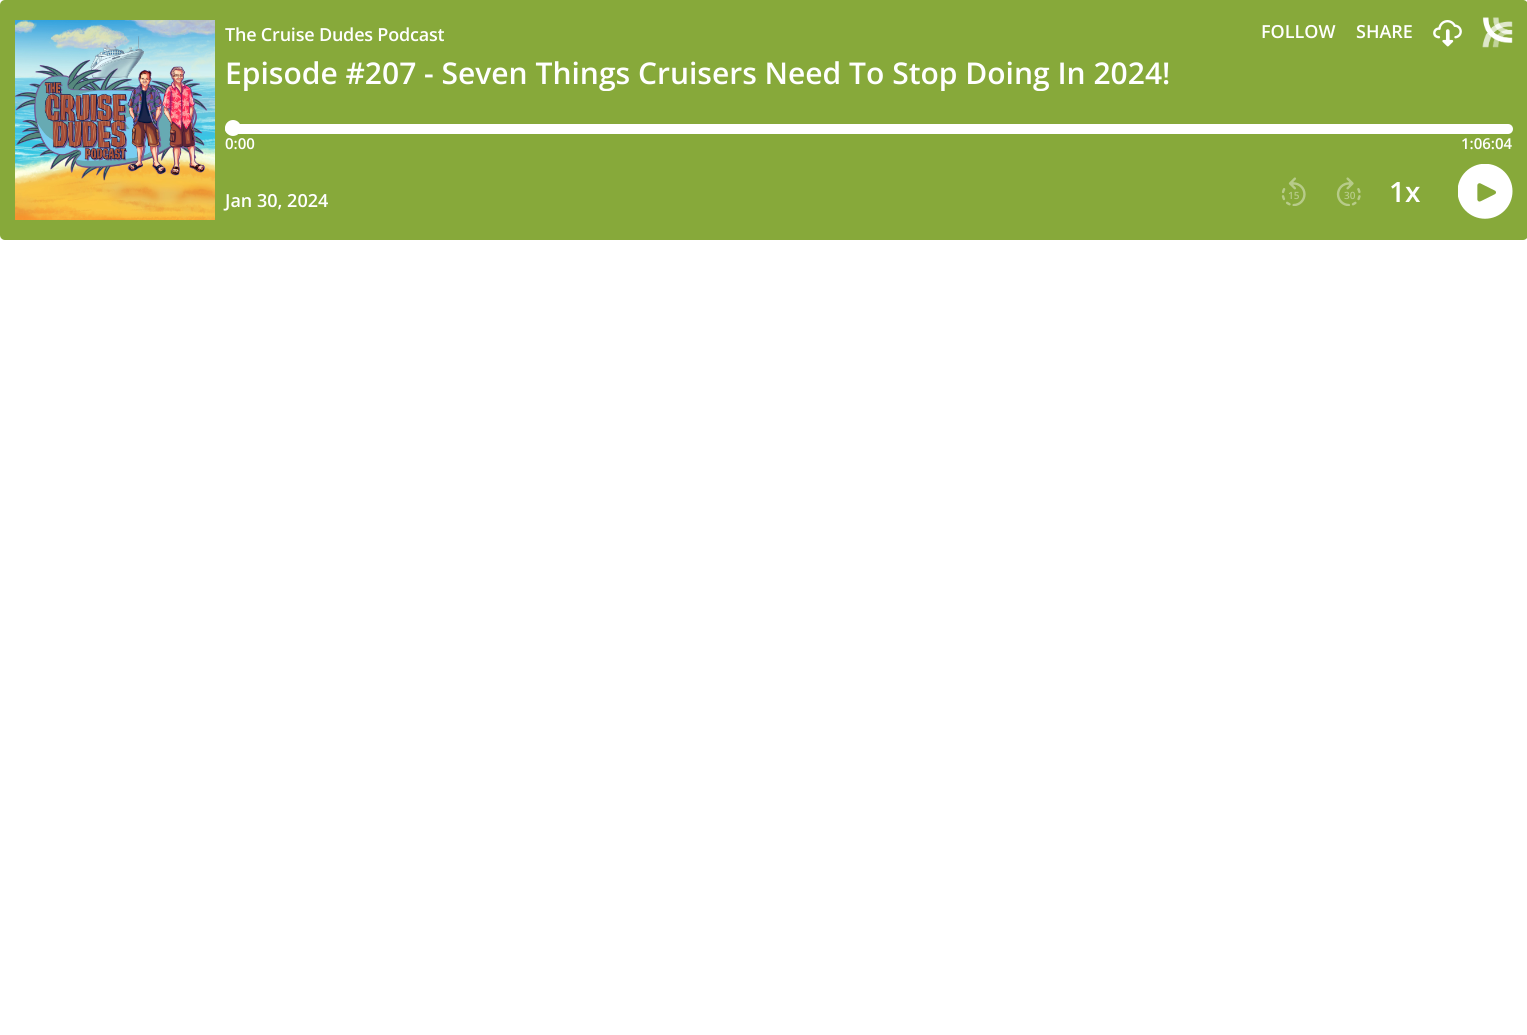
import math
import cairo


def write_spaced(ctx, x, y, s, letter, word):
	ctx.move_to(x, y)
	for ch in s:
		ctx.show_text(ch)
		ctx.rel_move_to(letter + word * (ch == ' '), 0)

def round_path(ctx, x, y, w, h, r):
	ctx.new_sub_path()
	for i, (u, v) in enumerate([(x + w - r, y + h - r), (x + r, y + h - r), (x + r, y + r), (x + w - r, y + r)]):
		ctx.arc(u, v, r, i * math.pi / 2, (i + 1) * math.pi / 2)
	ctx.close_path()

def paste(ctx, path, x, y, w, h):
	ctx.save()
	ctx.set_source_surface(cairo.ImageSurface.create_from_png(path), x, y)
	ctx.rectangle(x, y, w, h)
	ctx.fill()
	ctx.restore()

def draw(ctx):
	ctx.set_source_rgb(1, 1, 1)
	ctx.paint()
	ctx.set_source_rgb(0.529, 0.663, 0.227)
	round_path(ctx, 0, 0, 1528, 240, 5)
	ctx.fill()
	paste(ctx, 'media/1.png', 15, 20, 200, 200)
	ctx.save()
	ctx.rectangle(225, 24, 219, 21)
	ctx.clip()
	ctx.select_font_face('Open Sans SemiBold')
	ctx.set_font_size(18)
	ctx.set_source_rgb(1, 1, 1)
	write_spaced(ctx, 225, 41, 'The Cruise Dudes Podcast', -0.2, 0)
	ctx.restore()
	ctx.select_font_face('Open Sans SemiBold')
	ctx.set_font_size(18)
	ctx.set_source_rgb(1, 1, 1)
	ctx.move_to(1261, 38)
	ctx.show_text('FOLLOW')
	ctx.move_to(1356, 38)
	ctx.show_text('SHARE')
	paste(ctx, 'media/2.png', 1433, 20, 29, 27)
	paste(ctx, 'media/3.png', 1482, 17, 31, 31)
	ctx.save()
	ctx.rectangle(225, 55, 945, 36)
	ctx.clip()
	ctx.set_font_size(30)
	ctx.move_to(225, 84)
	ctx.show_text('Episode #207 - Seven Things Cruisers Need To Stop Doing In 2024!')
	ctx.restore()
	round_path(ctx, 225, 124, 1288, 10, 5)
	ctx.fill()
	ctx.arc(233, 128, 8, 0, 2 * math.pi)
	ctx.fill()
	ctx.set_font_size(15)
	ctx.move_to(225, 149)
	ctx.show_text('0:00')
	ctx.move_to(1461, 149)
	ctx.show_text('1:06:04')
	ctx.set_font_size(18)
	ctx.move_to(225, 207)
	ctx.show_text('Jan 30, 2024')
	paste(ctx, 'media/4.png', 1281, 177, 25, 29)
	ctx.set_font_size(10)
	ctx.set_source_rgb(0.718, 0.796, 0.537)
	ctx.move_to(1288, 199)
	ctx.show_text('15')
	paste(ctx, 'media/5.png', 1336, 177, 25, 29)
	ctx.move_to(1344, 199)
	ctx.show_text('30')
	ctx.set_font_size(28)
	ctx.set_source_rgb(1, 1, 1)
	ctx.move_to(1389, 202)
	ctx.show_text('1x')
	paste(ctx, 'media/6.png', 1458, 164, 55, 55)


surface = cairo.ImageSurface(cairo.FORMAT_RGB24, 1527, 1035)
ctx = cairo.Context(surface)
options = cairo.FontOptions()
options.set_hint_metrics(cairo.HINT_METRICS_OFF)
options.set_hint_style(cairo.HINT_STYLE_NONE)
ctx.set_font_options(options)
ctx.set_miter_limit(4)
draw(ctx)
surface.write_to_png('image.png')
